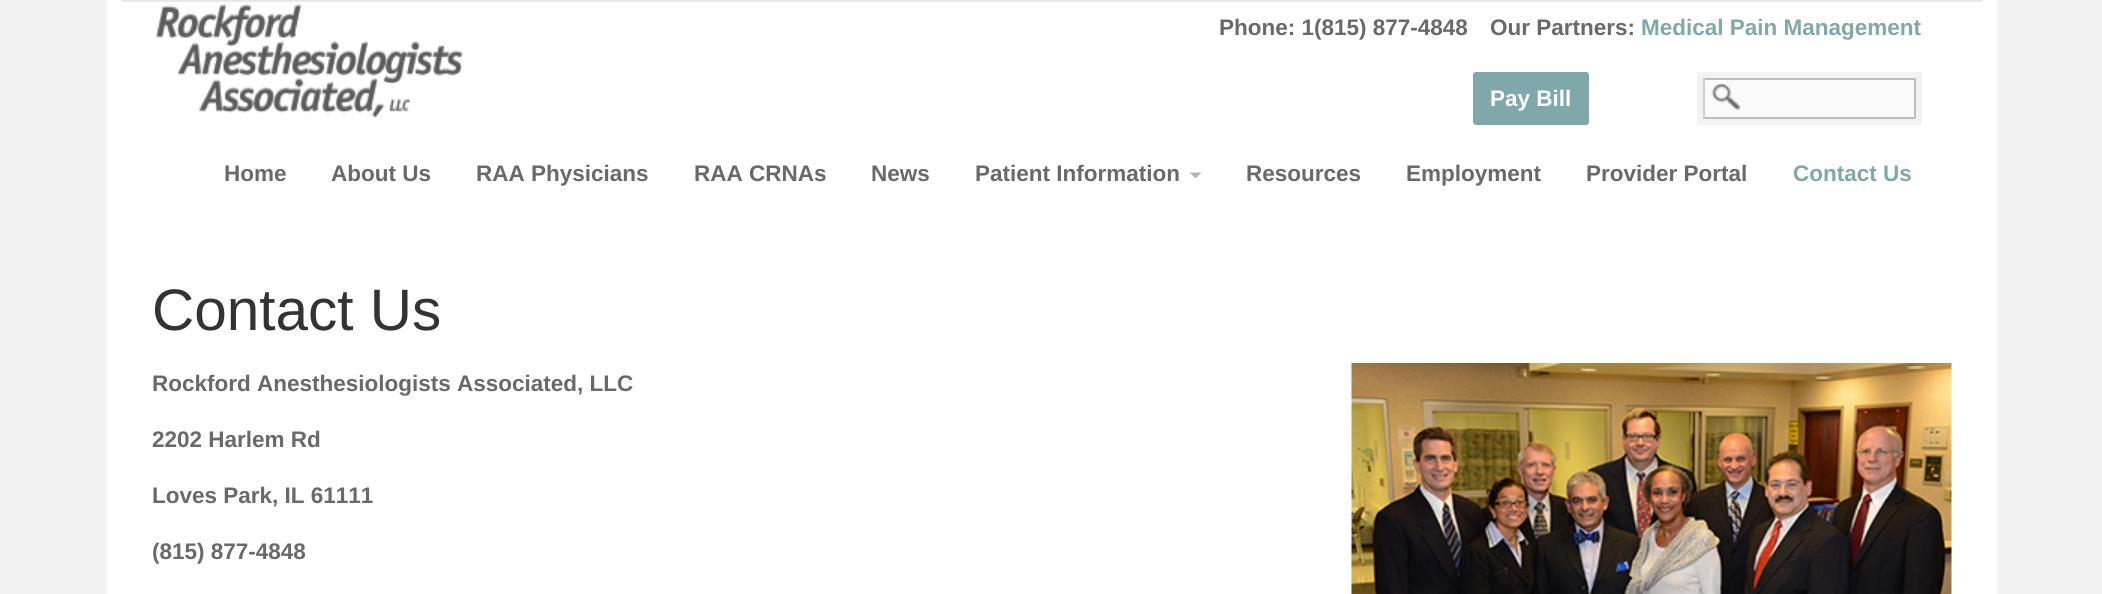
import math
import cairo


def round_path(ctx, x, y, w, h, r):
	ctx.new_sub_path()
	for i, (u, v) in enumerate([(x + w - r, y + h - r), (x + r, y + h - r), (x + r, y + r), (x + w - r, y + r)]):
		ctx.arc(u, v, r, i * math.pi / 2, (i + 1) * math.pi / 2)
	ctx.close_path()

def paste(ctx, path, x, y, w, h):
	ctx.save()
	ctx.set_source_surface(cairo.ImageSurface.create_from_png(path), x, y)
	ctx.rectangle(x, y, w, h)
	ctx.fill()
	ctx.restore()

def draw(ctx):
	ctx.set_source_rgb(0.949, 0.949, 0.949)
	ctx.paint()
	ctx.set_source_rgb(1, 1, 1)
	ctx.rectangle(107, 0, 1890, 594)
	ctx.fill()
	ctx.set_source_rgb(0.906, 0.906, 0.906)
	ctx.rectangle(122, 0, 1860, 2)
	ctx.fill()
	paste(ctx, 'media/1.png', 155, 4, 308, 114)
	ctx.select_font_face('Liberation Sans', cairo.FONT_SLANT_NORMAL, cairo.FONT_WEIGHT_BOLD)
	ctx.set_font_size(22.5)
	ctx.set_source_rgb(0.412, 0.412, 0.412)
	ctx.move_to(1219, 35)
	ctx.show_text('Phone: 1(815) 877-4848')
	ctx.move_to(1490, 35)
	ctx.show_text('Our Partners:')
	ctx.set_source_rgb(0.502, 0.659, 0.667)
	ctx.move_to(1641, 35)
	ctx.show_text('Medical Pain Management')
	round_path(ctx, 1474, 73, 114, 51, 2)
	ctx.fill_preserve()
	ctx.stroke()
	ctx.set_source_rgb(1, 1, 1)
	ctx.move_to(1490, 106)
	ctx.show_text('Pay Bill')
	ctx.set_source_rgb(0.949, 0.949, 0.949)
	ctx.rectangle(1697, 72, 225, 53)
	ctx.fill()
	ctx.set_source_rgb(0.98, 0.98, 0.98)
	ctx.rectangle(1704, 79, 211, 39)
	ctx.fill_preserve()
	ctx.set_source_rgb(0.749, 0.749, 0.749)
	ctx.stroke()
	ctx.set_source_rgb(0.808, 0.808, 0.808)
	ctx.rectangle(1703, 78, 2, 41)
	ctx.fill()
	paste(ctx, 'media/2.png', 1711, 84, 30, 27)
	ctx.set_source_rgb(0.412, 0.412, 0.412)
	for x, y, s in [
		(224, 181, 'Home'),
		(331, 181, 'About Us'),
		(476, 181, 'RAA Physicians'),
		(694, 181, 'RAA CRNAs'),
		(871, 181, 'News'),
		(975, 181, 'Patient Information'),
	]:
		ctx.move_to(x, y)
		ctx.show_text(s)
	ctx.set_source_rgb(0.706, 0.706, 0.706)
	ctx.new_path()
	ctx.move_to(1189.5, 172.5)
	ctx.line_to(1201.5, 172.5)
	ctx.line_to(1195.5, 178.5)
	ctx.close_path()
	ctx.fill()
	ctx.set_source_rgb(0.412, 0.412, 0.412)
	for x, y, s in [
		(1246, 181, 'Resources'),
		(1406, 181, 'Employment'),
		(1586, 181, 'Provider Portal'),
	]:
		ctx.move_to(x, y)
		ctx.show_text(s)
	ctx.set_source_rgb(0.502, 0.659, 0.667)
	ctx.move_to(1793, 181)
	ctx.show_text('Contact Us')
	ctx.select_font_face('Liberation Sans')
	ctx.set_font_size(58.5)
	ctx.set_source_rgb(0.2, 0.2, 0.2)
	ctx.move_to(152, 330)
	ctx.show_text('Contact Us')
	ctx.select_font_face('Liberation Sans', cairo.FONT_SLANT_NORMAL, cairo.FONT_WEIGHT_BOLD)
	ctx.set_font_size(22.5)
	ctx.set_source_rgb(0.412, 0.412, 0.412)
	ctx.move_to(152, 391)
	ctx.show_text('Rockford Anesthesiologists Associated, LLC')
	paste(ctx, 'media/3.png', 1351, 363, 601, 231)
	for x, y, s in [
		(152, 447, '2202 Harlem Rd'),
		(152, 503, 'Loves Park, IL 61111'),
		(152, 559, '(815) 877-4848'),
	]:
		ctx.move_to(x, y)
		ctx.show_text(s)


surface = cairo.ImageSurface(cairo.FORMAT_RGB24, 2102, 594)
ctx = cairo.Context(surface)
options = cairo.FontOptions()
options.set_hint_metrics(cairo.HINT_METRICS_OFF)
options.set_hint_style(cairo.HINT_STYLE_NONE)
ctx.set_font_options(options)
ctx.set_miter_limit(4)
draw(ctx)
surface.write_to_png('image.png')
